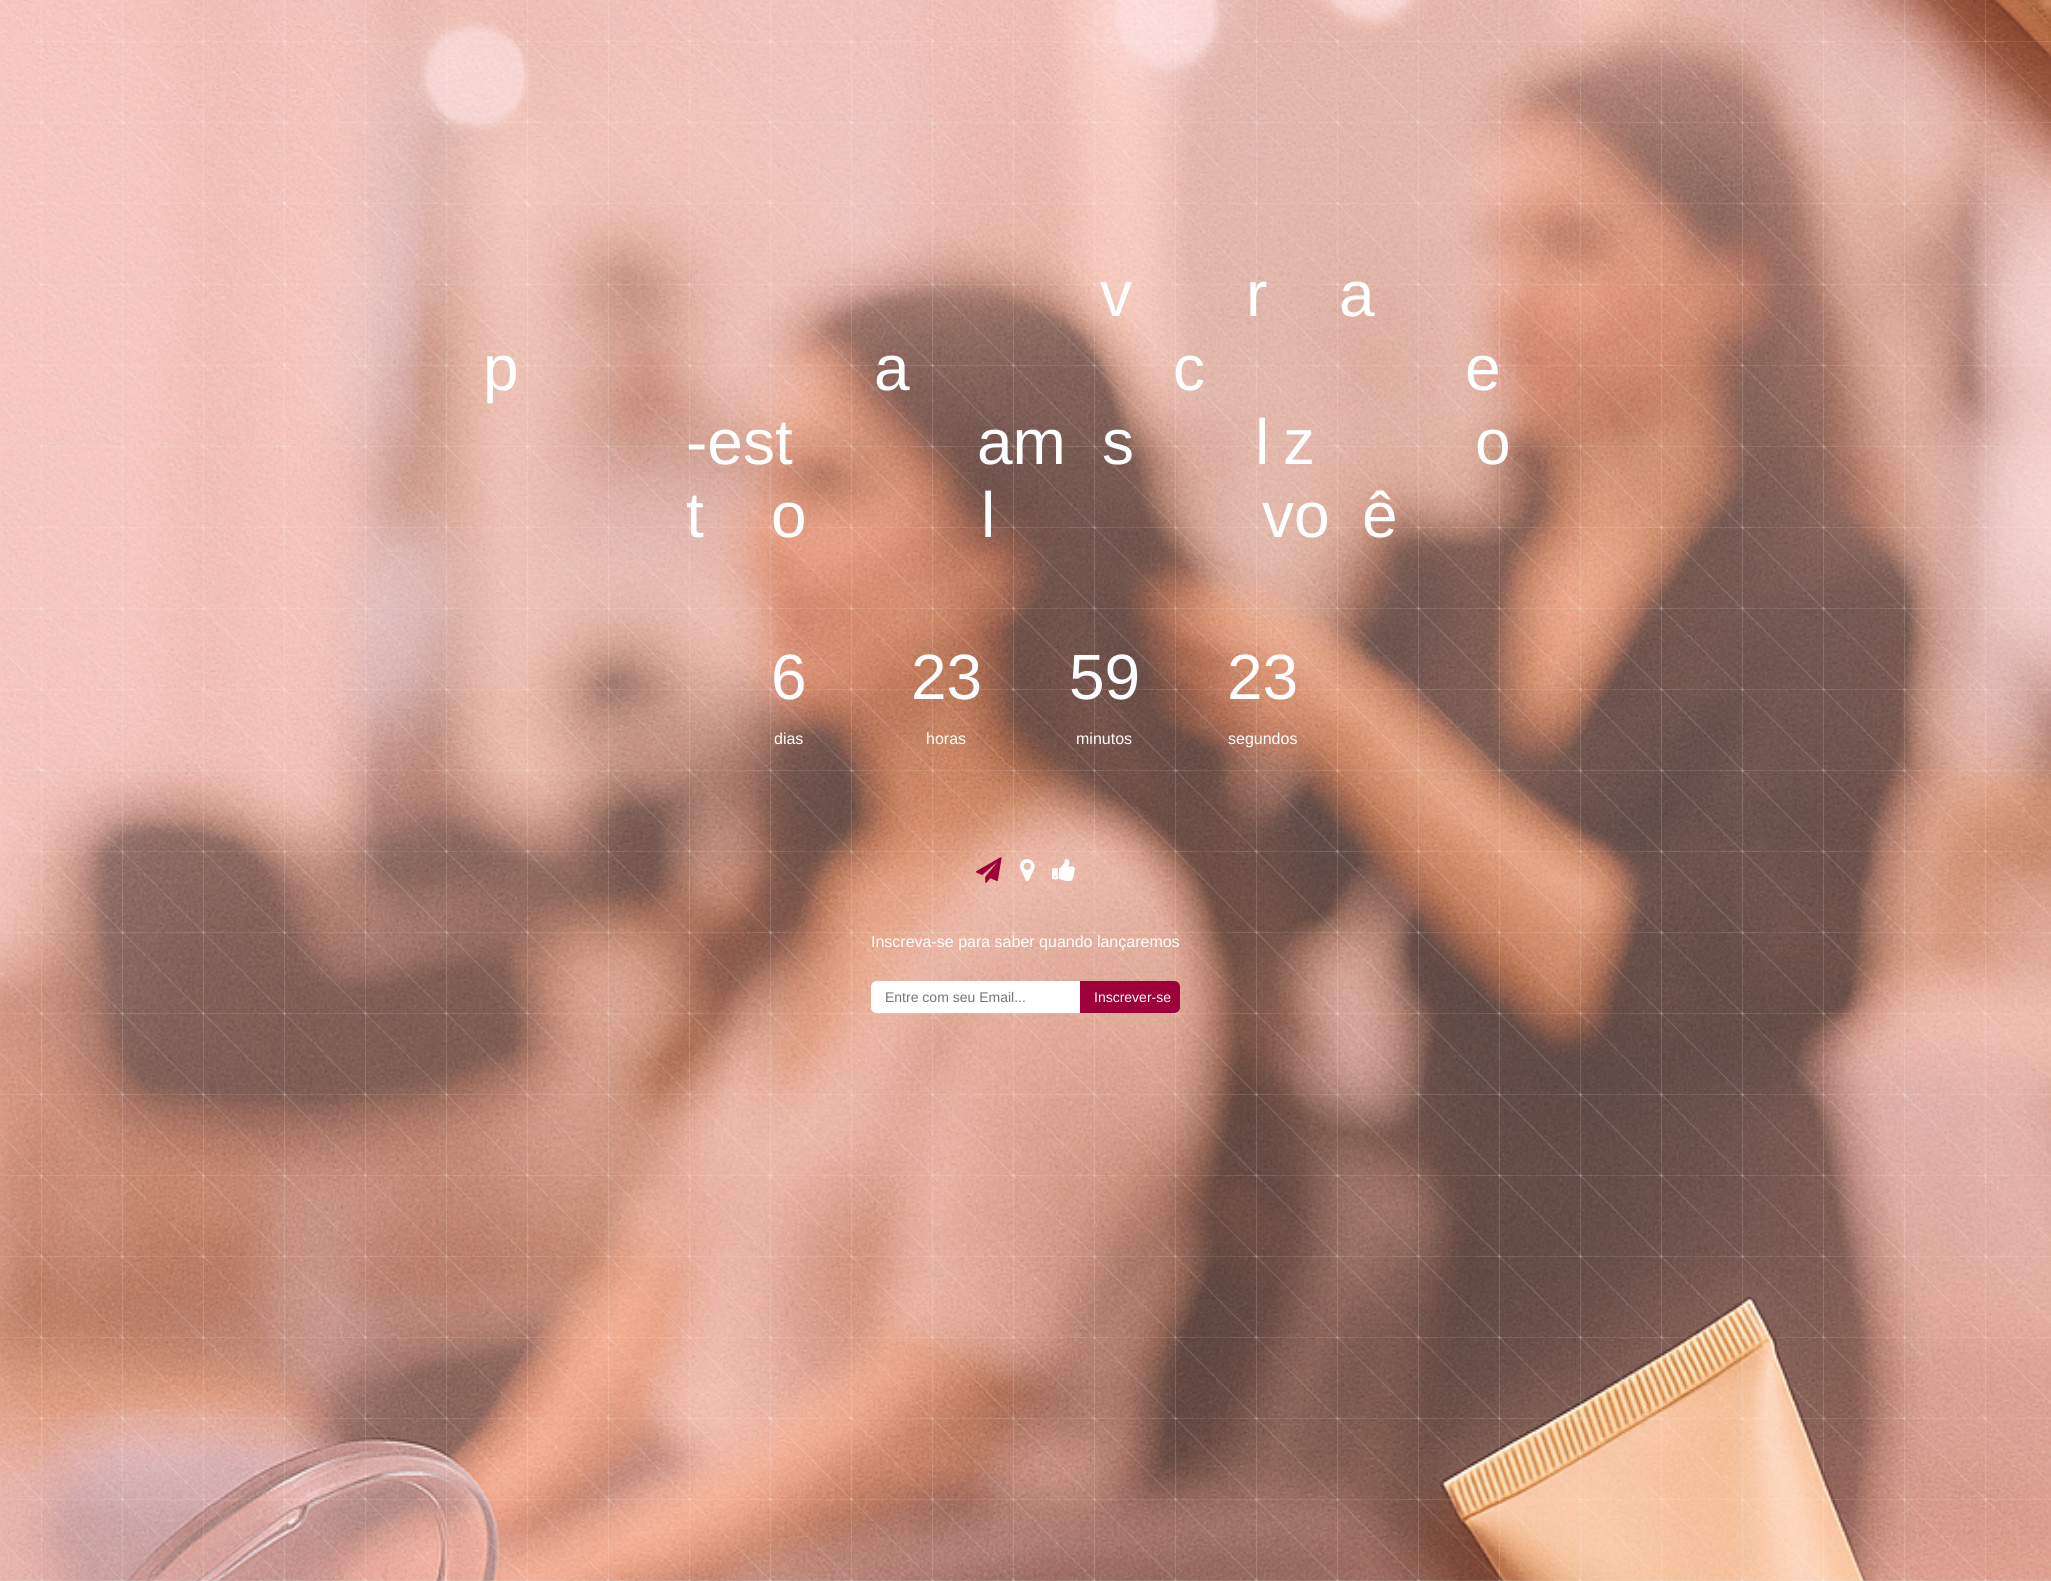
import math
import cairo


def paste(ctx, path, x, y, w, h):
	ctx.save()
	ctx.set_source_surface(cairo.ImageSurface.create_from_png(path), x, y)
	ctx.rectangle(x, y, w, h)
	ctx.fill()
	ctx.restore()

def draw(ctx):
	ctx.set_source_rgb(1, 1, 1)
	ctx.paint()
	paste(ctx, 'media/1.png', 0, 0, 2051, 1581)
	paste(ctx, 'media/2.png', 0, 0, 2051, 1581)
	ctx.select_font_face('Liberation Sans')
	ctx.set_font_size(64)
	ctx.set_source_rgb(1, 1, 1)
	for x, y, s in [
		(1100, 316, 'v'),
		(1246, 316, 'r'),
		(1339, 316, 'a'),
		(483, 390, 'p'),
		(874, 390, 'a'),
		(1173, 390, 'c'),
		(1465, 390, 'e'),
		(686, 464, '-est'),
		(977, 464, 'am'),
		(1102, 464, 's'),
		(1255, 464, 'l'),
		(1283, 464, 'z'),
		(1475, 464, 'o'),
		(686, 537, 't'),
		(771, 537, 'o'),
		(981, 537, 'l'),
		(1262, 537, 'vo'),
		(1362, 537, 'ê'),
		(771, 699, '6'),
	]:
		ctx.move_to(x, y)
		ctx.show_text(s)
	ctx.set_font_size(16)
	ctx.move_to(774, 744)
	ctx.show_text('dias')
	ctx.set_font_size(64)
	ctx.move_to(911, 699)
	ctx.show_text('23')
	ctx.set_font_size(16)
	ctx.move_to(926, 744)
	ctx.show_text('horas')
	ctx.set_font_size(64)
	ctx.move_to(1069, 699)
	ctx.show_text('59')
	ctx.set_font_size(16)
	ctx.move_to(1076, 744)
	ctx.show_text('minutos')
	ctx.set_font_size(64)
	ctx.move_to(1227, 699)
	ctx.show_text('23')
	ctx.set_font_size(16)
	ctx.move_to(1228, 744)
	ctx.show_text('segundos')
	paste(ctx, 'media/3.png', 976, 857, 26, 26)
	paste(ctx, 'media/4.png', 1020, 859, 15, 22)
	paste(ctx, 'media/5.png', 1052, 859, 23, 22)
	ctx.move_to(871, 947)
	ctx.show_text('Inscreva-se para saber quando lançaremos')
	ctx.new_path()
	ctx.move_to(877, 981)
	ctx.line_to(1080, 981)
	ctx.line_to(1080, 1013)
	ctx.line_to(877, 1013)
	ctx.curve_to(873.5, 1013, 871, 1010.5, 871, 1007)
	ctx.line_to(871, 987)
	ctx.curve_to(871, 983.5, 873.5, 981, 877, 981)
	ctx.close_path()
	ctx.fill()
	ctx.set_font_size(14)
	ctx.set_source_rgb(0.459, 0.459, 0.459)
	ctx.move_to(885, 1002)
	ctx.show_text('Entre com seu Email...')
	ctx.set_source_rgb(0.62, 0, 0.224)
	ctx.new_path()
	ctx.move_to(1080, 981)
	ctx.line_to(1174, 981)
	ctx.curve_to(1177.5, 981, 1180, 983.5, 1180, 987)
	ctx.line_to(1180, 1007)
	ctx.curve_to(1180, 1010.5, 1177.5, 1013, 1174, 1013)
	ctx.line_to(1080, 1013)
	ctx.close_path()
	ctx.fill()
	ctx.set_source_rgb(1, 1, 1)
	ctx.move_to(1094, 1002)
	ctx.show_text('Inscrever-se')


surface = cairo.ImageSurface(cairo.FORMAT_RGB24, 2051, 1581)
ctx = cairo.Context(surface)
options = cairo.FontOptions()
options.set_hint_metrics(cairo.HINT_METRICS_OFF)
options.set_hint_style(cairo.HINT_STYLE_NONE)
ctx.set_font_options(options)
ctx.set_miter_limit(4)
draw(ctx)
surface.write_to_png('image.png')
